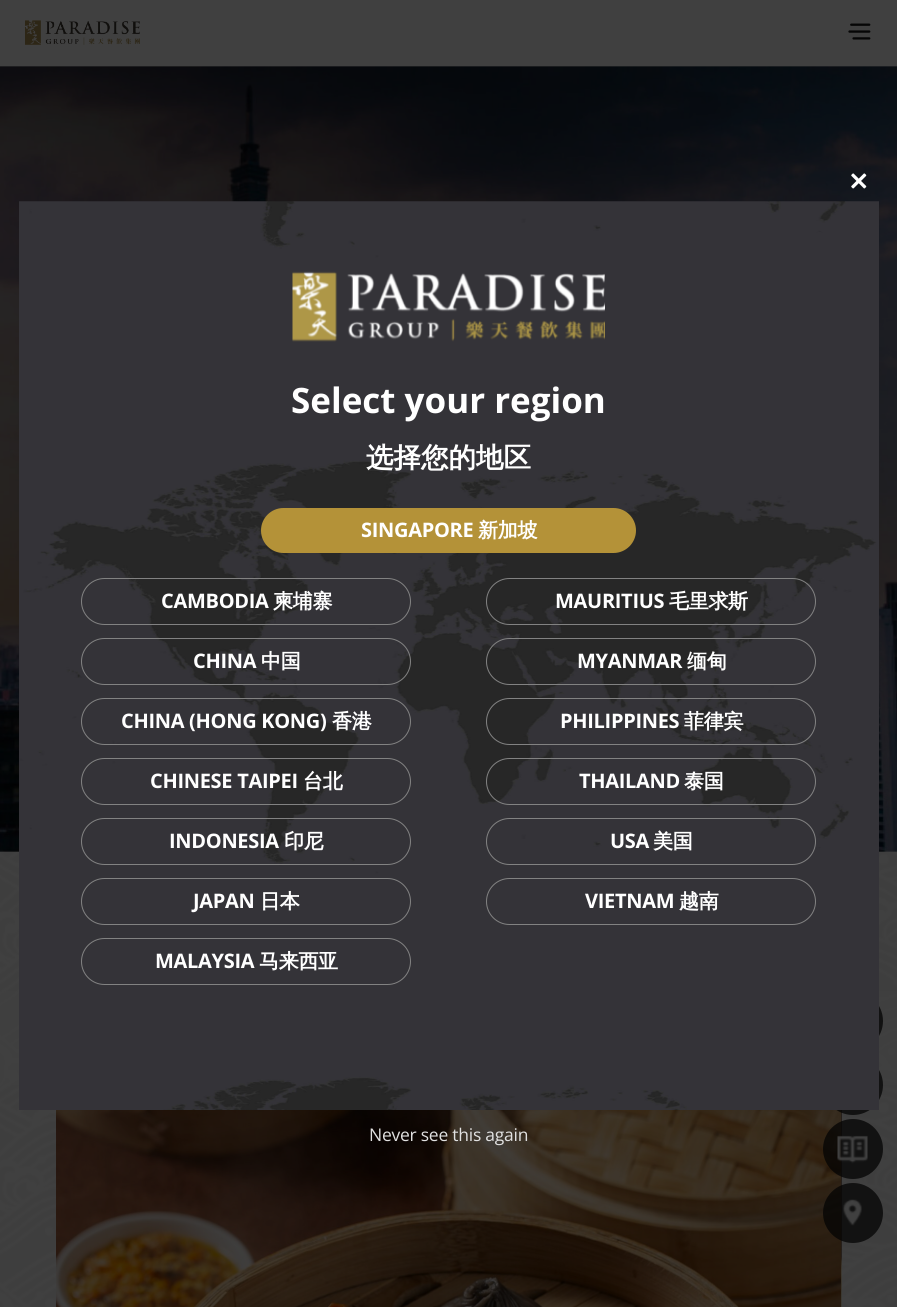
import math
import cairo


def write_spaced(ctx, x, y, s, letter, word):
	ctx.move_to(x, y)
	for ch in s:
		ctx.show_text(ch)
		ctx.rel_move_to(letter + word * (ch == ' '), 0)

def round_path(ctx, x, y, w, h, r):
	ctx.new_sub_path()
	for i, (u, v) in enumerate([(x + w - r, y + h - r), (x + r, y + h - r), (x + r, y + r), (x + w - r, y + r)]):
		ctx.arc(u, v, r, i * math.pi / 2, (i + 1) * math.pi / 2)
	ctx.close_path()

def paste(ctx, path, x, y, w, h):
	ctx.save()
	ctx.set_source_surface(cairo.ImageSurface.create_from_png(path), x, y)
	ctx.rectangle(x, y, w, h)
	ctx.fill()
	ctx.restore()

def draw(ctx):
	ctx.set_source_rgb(0.251, 0.251, 0.251)
	ctx.paint()
	paste(ctx, 'media/1.png', 0, 850, 897, 457)
	paste(ctx, 'media/2.png', 25, 20, 115, 25)
	paste(ctx, 'media/3.png', 848, 23, 23, 17)
	paste(ctx, 'media/4.png', 0, 66, 897, 786)
	paste(ctx, 'media/5.png', 56, 1110, 785, 197)
	paste(ctx, 'media/6.png', 841, 1110, 1, 197)
	ctx.set_source_rgba(0.012, 0.012, 0.012, 0.75)
	ctx.arc(853, 1021, 30, 0, 2 * math.pi)
	ctx.fill()
	ctx.arc(853, 1085, 30, 0, 2 * math.pi)
	ctx.fill()
	paste(ctx, 'media/7.png', 19, 201, 860, 909)
	paste(ctx, 'media/8.png', 851, 173, 16, 16)
	paste(ctx, 'media/9.png', 292, 271, 313, 71)
	ctx.select_font_face('Open Sans', cairo.FONT_SLANT_NORMAL, cairo.FONT_WEIGHT_BOLD)
	ctx.set_font_size(35)
	ctx.set_source_rgb(1, 1, 1)
	ctx.move_to(291, 413)
	ctx.show_text('Select your region')
	ctx.select_font_face('WenQuanYi Zen Hei', cairo.FONT_SLANT_NORMAL, cairo.FONT_WEIGHT_BOLD)
	ctx.set_font_size(27.5)
	ctx.move_to(366, 467)
	ctx.show_text('选择您的地区')
	ctx.set_source_rgb(0.706, 0.573, 0.22)
	round_path(ctx, 261, 508, 375, 45, 22.5)
	ctx.fill()
	ctx.select_font_face('Open Sans', cairo.FONT_SLANT_NORMAL, cairo.FONT_WEIGHT_BOLD)
	ctx.set_font_size(20)
	ctx.set_source_rgb(1, 1, 1)
	write_spaced(ctx, 361, 537, 'SINGAPORE', -0.3, 0)
	ctx.select_font_face('WenQuanYi Zen Hei', cairo.FONT_SLANT_NORMAL, cairo.FONT_WEIGHT_BOLD)
	write_spaced(ctx, 478, 537, '新加坡', -0.3, 0)
	round_path(ctx, 81.5, 578.5, 329, 46, 23)
	ctx.set_source_rgb(0.51, 0.51, 0.51)
	ctx.set_line_width(1)
	ctx.stroke()
	ctx.select_font_face('Open Sans', cairo.FONT_SLANT_NORMAL, cairo.FONT_WEIGHT_BOLD)
	ctx.set_source_rgb(1, 1, 1)
	write_spaced(ctx, 161, 608, 'CAMBODIA', -0.3, 0)
	ctx.select_font_face('WenQuanYi Zen Hei', cairo.FONT_SLANT_NORMAL, cairo.FONT_WEIGHT_BOLD)
	write_spaced(ctx, 273, 608, '柬埔寨', -0.3, 0)
	round_path(ctx, 81.5, 638.5, 329, 46, 23)
	ctx.set_source_rgb(0.51, 0.51, 0.51)
	ctx.stroke()
	ctx.select_font_face('Open Sans', cairo.FONT_SLANT_NORMAL, cairo.FONT_WEIGHT_BOLD)
	ctx.set_source_rgb(1, 1, 1)
	write_spaced(ctx, 193, 668, 'CHINA', -0.3, 0)
	ctx.select_font_face('WenQuanYi Zen Hei', cairo.FONT_SLANT_NORMAL, cairo.FONT_WEIGHT_BOLD)
	write_spaced(ctx, 261, 668, '中国', -0.3, 0)
	round_path(ctx, 81.5, 698.5, 329, 46, 23)
	ctx.set_source_rgb(0.51, 0.51, 0.51)
	ctx.stroke()
	ctx.select_font_face('Open Sans', cairo.FONT_SLANT_NORMAL, cairo.FONT_WEIGHT_BOLD)
	ctx.set_source_rgb(1, 1, 1)
	write_spaced(ctx, 121, 728, 'CHINA (HONG KONG)', -0.3, 0)
	ctx.select_font_face('WenQuanYi Zen Hei', cairo.FONT_SLANT_NORMAL, cairo.FONT_WEIGHT_BOLD)
	write_spaced(ctx, 332, 728, '香港', -0.3, 0)
	round_path(ctx, 81.5, 758.5, 329, 46, 23)
	ctx.set_source_rgb(0.51, 0.51, 0.51)
	ctx.stroke()
	ctx.select_font_face('Open Sans', cairo.FONT_SLANT_NORMAL, cairo.FONT_WEIGHT_BOLD)
	ctx.set_source_rgb(1, 1, 1)
	write_spaced(ctx, 150, 788, 'CHINESE TAIPEI', -0.3, 0)
	ctx.select_font_face('WenQuanYi Zen Hei', cairo.FONT_SLANT_NORMAL, cairo.FONT_WEIGHT_BOLD)
	write_spaced(ctx, 303, 788, '台北', -0.3, 0)
	round_path(ctx, 81.5, 818.5, 329, 46, 23)
	ctx.set_source_rgb(0.51, 0.51, 0.51)
	ctx.stroke()
	ctx.select_font_face('Open Sans', cairo.FONT_SLANT_NORMAL, cairo.FONT_WEIGHT_BOLD)
	ctx.set_source_rgb(1, 1, 1)
	write_spaced(ctx, 169, 848, 'INDONESIA', -0.3, 0)
	ctx.select_font_face('WenQuanYi Zen Hei', cairo.FONT_SLANT_NORMAL, cairo.FONT_WEIGHT_BOLD)
	write_spaced(ctx, 284, 848, '印尼', -0.3, 0)
	round_path(ctx, 81.5, 878.5, 329, 46, 23)
	ctx.set_source_rgb(0.51, 0.51, 0.51)
	ctx.stroke()
	ctx.select_font_face('Open Sans', cairo.FONT_SLANT_NORMAL, cairo.FONT_WEIGHT_BOLD)
	ctx.set_source_rgb(1, 1, 1)
	write_spaced(ctx, 193, 908, 'JAPAN', -0.3, 0)
	ctx.select_font_face('WenQuanYi Zen Hei', cairo.FONT_SLANT_NORMAL, cairo.FONT_WEIGHT_BOLD)
	write_spaced(ctx, 260, 908, '日本', -0.3, 0)
	round_path(ctx, 81.5, 938.5, 329, 46, 23)
	ctx.set_source_rgb(0.51, 0.51, 0.51)
	ctx.stroke()
	ctx.select_font_face('Open Sans', cairo.FONT_SLANT_NORMAL, cairo.FONT_WEIGHT_BOLD)
	ctx.set_source_rgb(1, 1, 1)
	write_spaced(ctx, 155, 968, 'MALAYSIA', -0.3, 0)
	ctx.select_font_face('WenQuanYi Zen Hei', cairo.FONT_SLANT_NORMAL, cairo.FONT_WEIGHT_BOLD)
	write_spaced(ctx, 259, 968, '马来西亚', -0.3, 0)
	round_path(ctx, 486.5, 578.5, 329, 46, 23)
	ctx.set_source_rgb(0.51, 0.51, 0.51)
	ctx.stroke()
	ctx.select_font_face('Open Sans', cairo.FONT_SLANT_NORMAL, cairo.FONT_WEIGHT_BOLD)
	ctx.set_source_rgb(1, 1, 1)
	write_spaced(ctx, 555, 608, 'MAURITIUS', -0.3, 0)
	ctx.select_font_face('WenQuanYi Zen Hei', cairo.FONT_SLANT_NORMAL, cairo.FONT_WEIGHT_BOLD)
	write_spaced(ctx, 669, 608, '毛里求斯', -0.3, 0)
	round_path(ctx, 486.5, 638.5, 329, 46, 23)
	ctx.set_source_rgb(0.51, 0.51, 0.51)
	ctx.stroke()
	ctx.select_font_face('Open Sans', cairo.FONT_SLANT_NORMAL, cairo.FONT_WEIGHT_BOLD)
	ctx.set_source_rgb(1, 1, 1)
	write_spaced(ctx, 577, 668, 'MYANMAR', -0.3, 0)
	ctx.select_font_face('WenQuanYi Zen Hei', cairo.FONT_SLANT_NORMAL, cairo.FONT_WEIGHT_BOLD)
	write_spaced(ctx, 687, 668, '缅甸', -0.3, 0)
	round_path(ctx, 486.5, 698.5, 329, 46, 23)
	ctx.set_source_rgb(0.51, 0.51, 0.51)
	ctx.stroke()
	ctx.select_font_face('Open Sans', cairo.FONT_SLANT_NORMAL, cairo.FONT_WEIGHT_BOLD)
	ctx.set_source_rgb(1, 1, 1)
	write_spaced(ctx, 560, 728, 'PHILIPPINES', -0.3, 0)
	ctx.select_font_face('WenQuanYi Zen Hei', cairo.FONT_SLANT_NORMAL, cairo.FONT_WEIGHT_BOLD)
	write_spaced(ctx, 684, 728, '菲律宾', -0.3, 0)
	round_path(ctx, 486.5, 758.5, 329, 46, 23)
	ctx.set_source_rgb(0.51, 0.51, 0.51)
	ctx.stroke()
	ctx.select_font_face('Open Sans', cairo.FONT_SLANT_NORMAL, cairo.FONT_WEIGHT_BOLD)
	ctx.set_source_rgb(1, 1, 1)
	write_spaced(ctx, 579, 788, 'THAILAND', -0.3, 0)
	ctx.select_font_face('WenQuanYi Zen Hei', cairo.FONT_SLANT_NORMAL, cairo.FONT_WEIGHT_BOLD)
	write_spaced(ctx, 684, 788, '泰国', -0.3, 0)
	round_path(ctx, 486.5, 818.5, 329, 46, 23)
	ctx.set_source_rgb(0.51, 0.51, 0.51)
	ctx.stroke()
	ctx.select_font_face('Open Sans', cairo.FONT_SLANT_NORMAL, cairo.FONT_WEIGHT_BOLD)
	ctx.set_source_rgb(1, 1, 1)
	write_spaced(ctx, 610, 848, 'USA', -0.3, 0)
	ctx.select_font_face('WenQuanYi Zen Hei', cairo.FONT_SLANT_NORMAL, cairo.FONT_WEIGHT_BOLD)
	write_spaced(ctx, 653, 848, '美国', -0.3, 0)
	round_path(ctx, 486.5, 878.5, 329, 46, 23)
	ctx.set_source_rgb(0.51, 0.51, 0.51)
	ctx.stroke()
	ctx.select_font_face('Open Sans', cairo.FONT_SLANT_NORMAL, cairo.FONT_WEIGHT_BOLD)
	ctx.set_source_rgb(1, 1, 1)
	write_spaced(ctx, 585, 908, 'VIETNAM', -0.3, 0)
	ctx.select_font_face('WenQuanYi Zen Hei', cairo.FONT_SLANT_NORMAL, cairo.FONT_WEIGHT_BOLD)
	write_spaced(ctx, 679, 908, '越南', -0.3, 0)
	ctx.select_font_face('Open Sans')
	ctx.set_font_size(17.5)
	ctx.set_source_rgb(0.882, 0.882, 0.882)
	write_spaced(ctx, 369, 1141, 'Never see this again', -0.25, 0)
	ctx.set_source_rgba(0.012, 0.012, 0.012, 0.75)
	ctx.new_path()
	ctx.arc(853, 1149, 30, 0, 2 * math.pi)
	ctx.fill()
	paste(ctx, 'media/10.png', 837, 1135, 31, 29)
	ctx.arc(853, 1213, 30, 0, 2 * math.pi)
	ctx.fill()
	paste(ctx, 'media/11.png', 843, 1199, 19, 27)


surface = cairo.ImageSurface(cairo.FORMAT_RGB24, 897, 1307)
ctx = cairo.Context(surface)
options = cairo.FontOptions()
options.set_hint_metrics(cairo.HINT_METRICS_OFF)
options.set_hint_style(cairo.HINT_STYLE_NONE)
ctx.set_font_options(options)
ctx.set_miter_limit(4)
draw(ctx)
surface.write_to_png('image.png')
